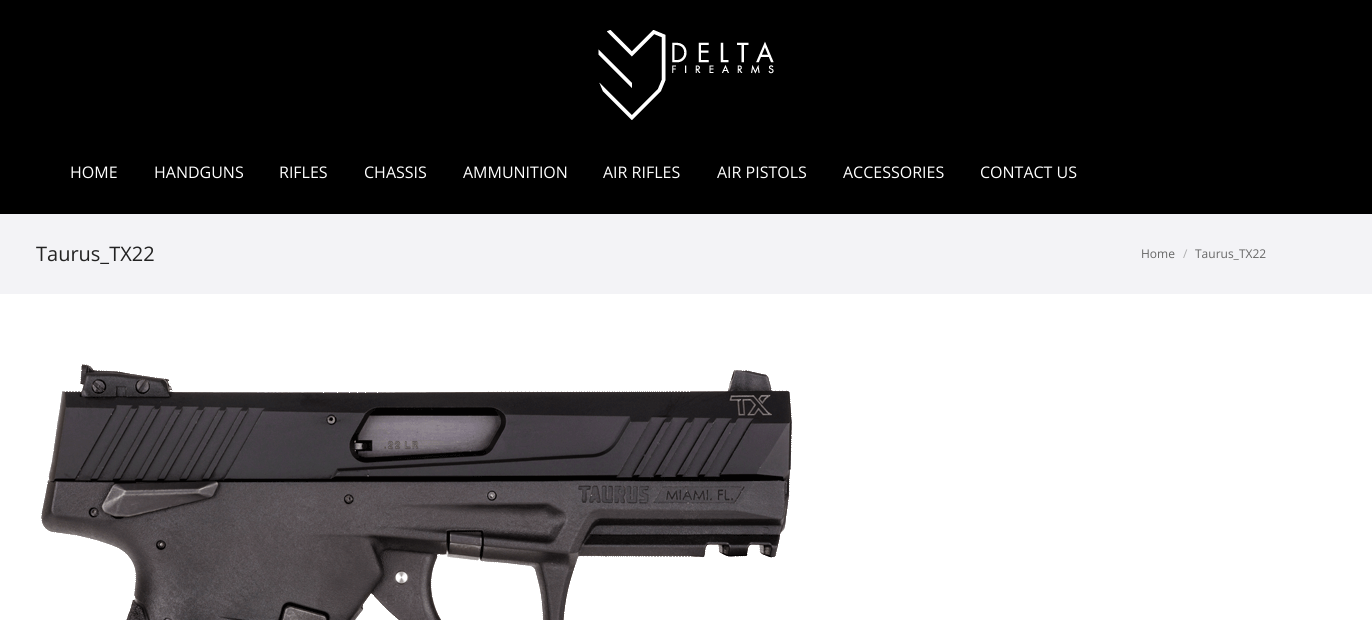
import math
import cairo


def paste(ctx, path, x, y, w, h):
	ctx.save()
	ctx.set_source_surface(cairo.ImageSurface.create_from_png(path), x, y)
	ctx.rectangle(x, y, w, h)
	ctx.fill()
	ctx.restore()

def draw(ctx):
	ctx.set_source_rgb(1, 1, 1)
	ctx.paint()
	ctx.set_source_rgb(0, 0, 0)
	ctx.rectangle(0, 0, 1372, 214)
	ctx.fill()
	paste(ctx, 'media/1.png', 598, 30, 176, 90)
	ctx.select_font_face('Open Sans')
	ctx.set_font_size(16)
	ctx.set_source_rgb(1, 1, 1)
	for x, y, s in [
		(70, 178, 'HOME'),
		(154, 178, 'HANDGUNS'),
		(279, 178, 'RIFLES'),
		(364, 178, 'CHASSIS'),
		(463, 178, 'AMMUNITION'),
		(603, 178, 'AIR RIFLES'),
		(717, 178, 'AIR PISTOLS'),
		(843, 178, 'ACCESSORIES'),
		(980, 178, 'CONTACT US'),
	]:
		ctx.move_to(x, y)
		ctx.show_text(s)
	ctx.set_source_rgb(0.953, 0.953, 0.961)
	ctx.rectangle(0, 214, 1372, 80)
	ctx.fill()
	ctx.set_font_size(20)
	ctx.set_source_rgb(0.133, 0.133, 0.133)
	ctx.move_to(36, 261)
	ctx.show_text('Taurus_TX22')
	ctx.set_font_size(12)
	ctx.set_source_rgb(0.4, 0.4, 0.4)
	ctx.move_to(1141, 258)
	ctx.show_text('Home')
	ctx.set_source_rgb(0.678, 0.678, 0.682)
	ctx.move_to(1183, 258)
	ctx.show_text('/')
	ctx.set_source_rgb(0.4, 0.4, 0.4)
	ctx.move_to(1195, 258)
	ctx.show_text('Taurus_TX22')
	paste(ctx, 'media/2.png', 41, 364, 751, 256)


surface = cairo.ImageSurface(cairo.FORMAT_RGB24, 1372, 620)
ctx = cairo.Context(surface)
options = cairo.FontOptions()
options.set_hint_metrics(cairo.HINT_METRICS_OFF)
options.set_hint_style(cairo.HINT_STYLE_NONE)
ctx.set_font_options(options)
ctx.set_miter_limit(4)
draw(ctx)
surface.write_to_png('image.png')
